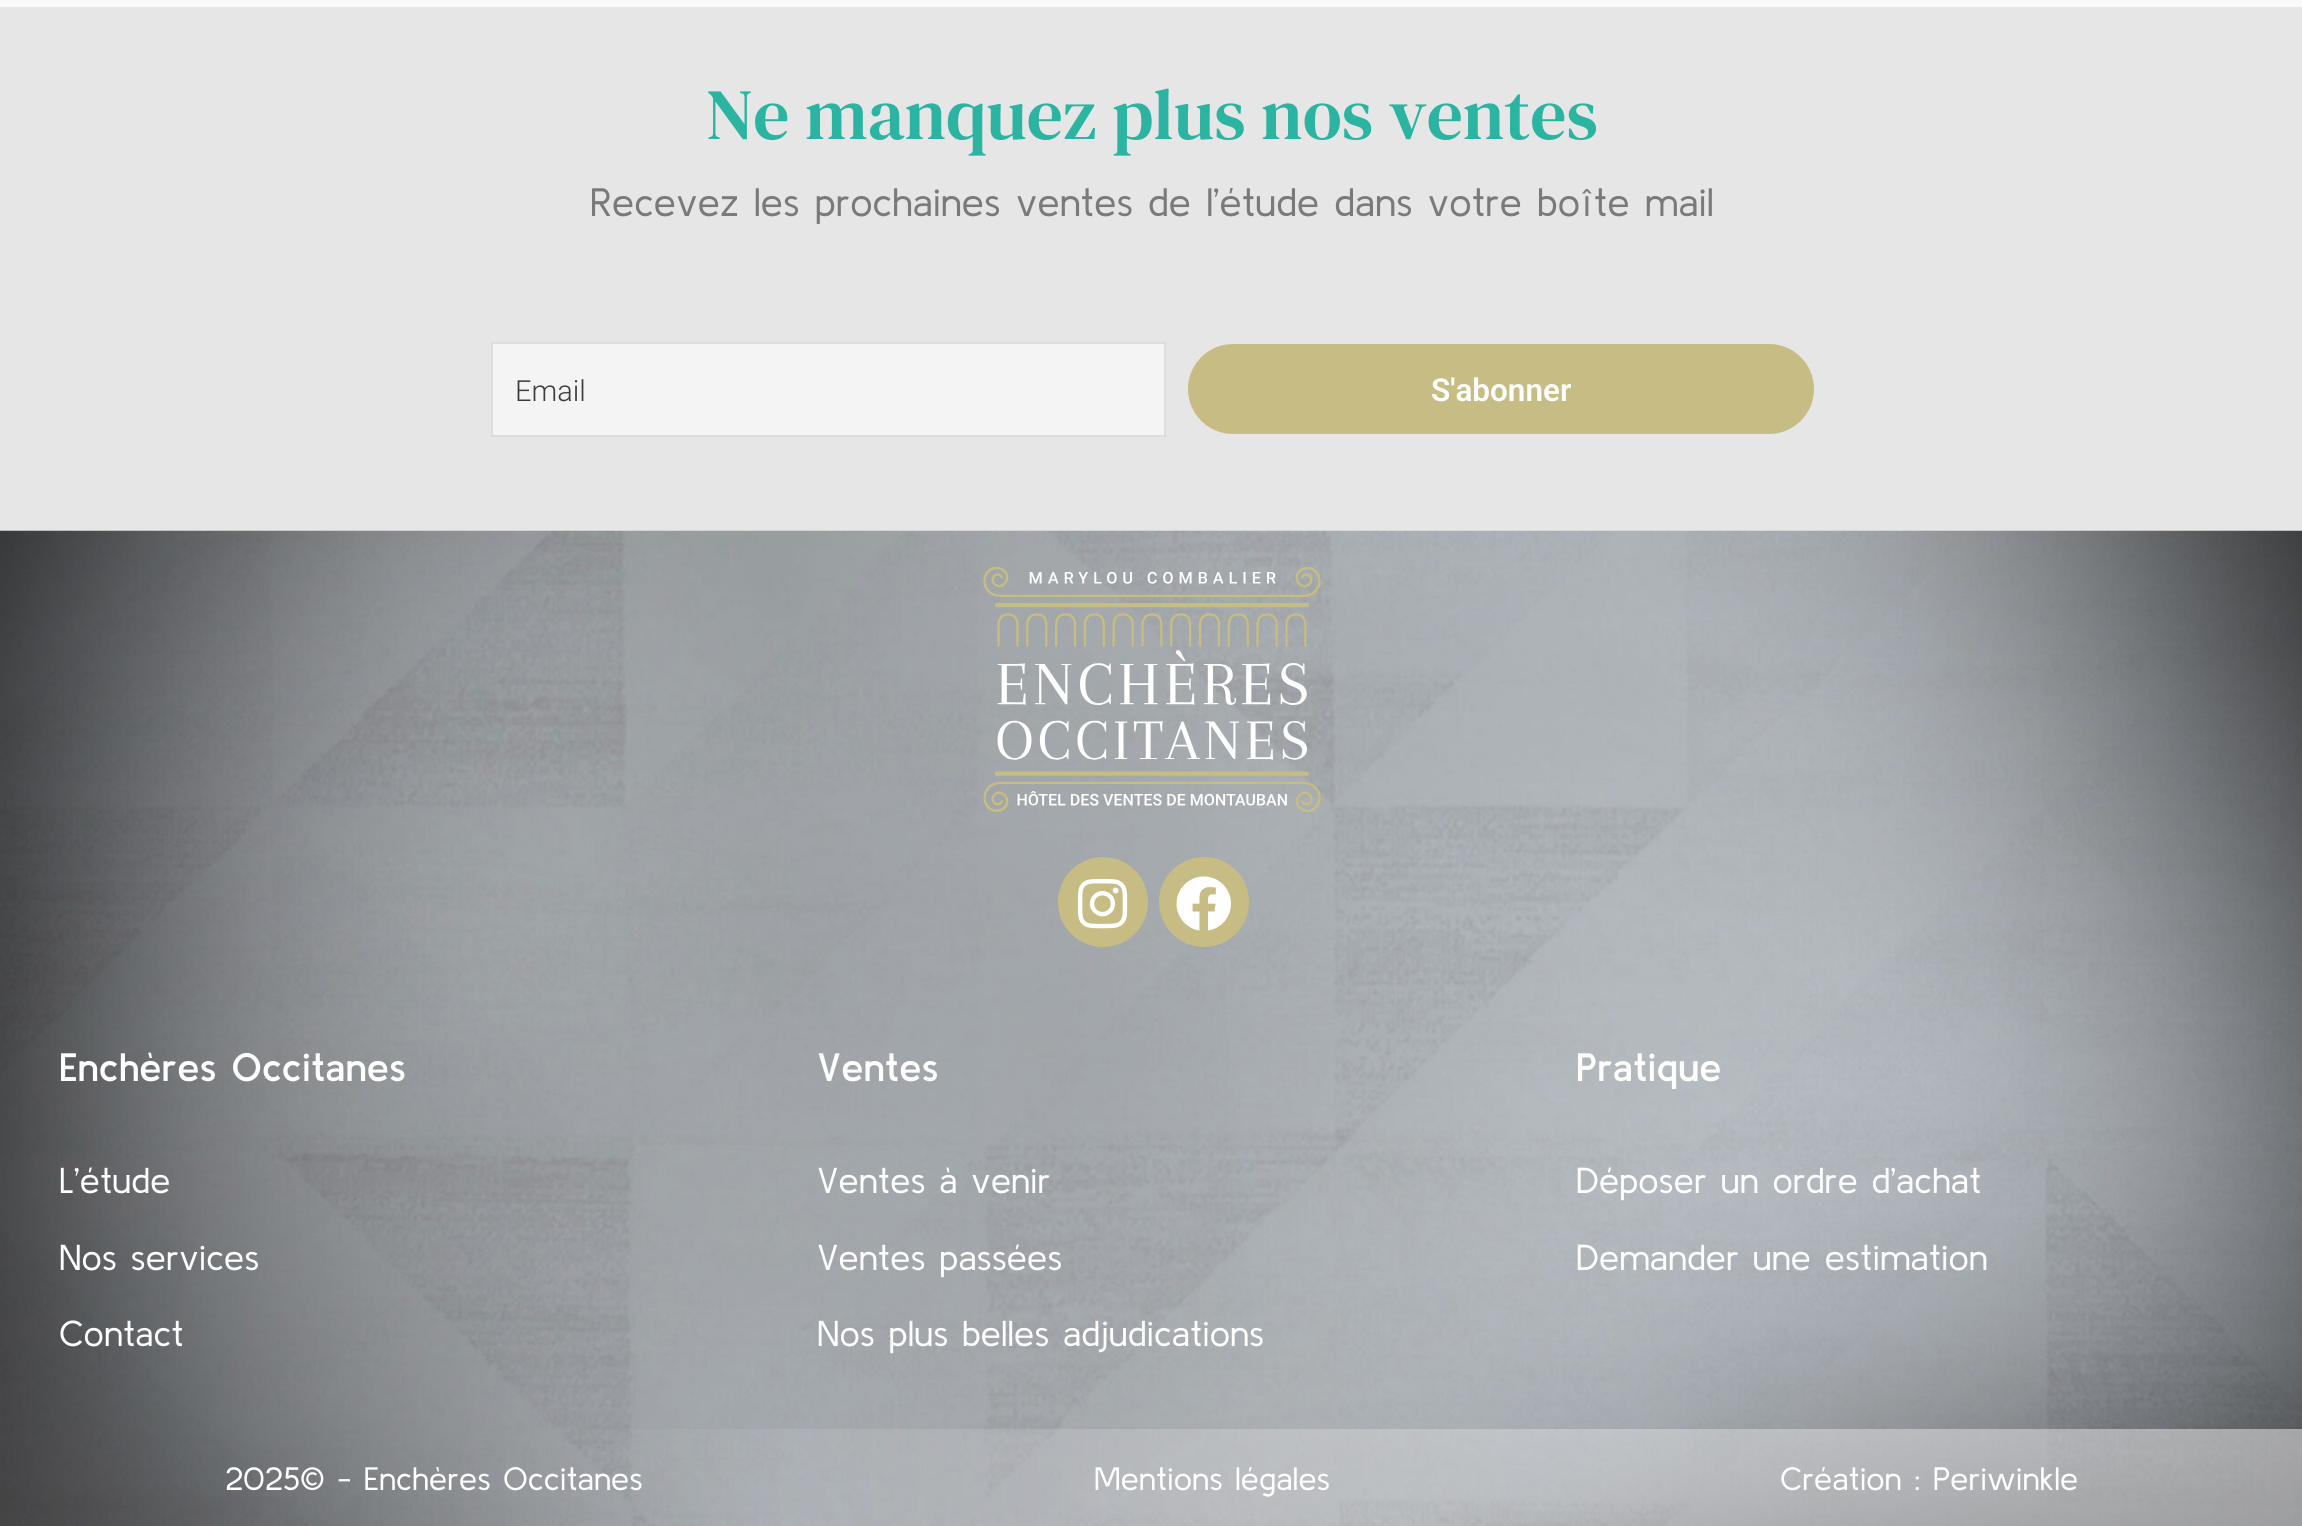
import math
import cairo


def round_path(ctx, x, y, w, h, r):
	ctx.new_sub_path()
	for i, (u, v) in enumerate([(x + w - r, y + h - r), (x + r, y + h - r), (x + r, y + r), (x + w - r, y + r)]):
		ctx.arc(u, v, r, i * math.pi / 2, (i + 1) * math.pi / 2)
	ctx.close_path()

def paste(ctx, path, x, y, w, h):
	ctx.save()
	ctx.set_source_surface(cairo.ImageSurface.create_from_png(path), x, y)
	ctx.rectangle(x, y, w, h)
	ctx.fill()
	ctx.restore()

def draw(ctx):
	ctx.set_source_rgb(0.976, 0.976, 0.976)
	ctx.paint()
	ctx.set_source_rgb(0.902, 0.902, 0.902)
	ctx.rectangle(0, 7, 2302, 524)
	ctx.fill()
	ctx.select_font_face('DM Serif Text')
	ctx.set_font_size(72)
	ctx.set_source_rgb(0.169, 0.706, 0.631)
	ctx.move_to(706, 139)
	ctx.show_text('Ne manquez plus nos ventes')
	ctx.select_font_face('Kulim Park')
	ctx.set_font_size(39.6)
	ctx.set_source_rgb(0.478, 0.478, 0.478)
	ctx.move_to(590, 216)
	ctx.show_text('Recevez les prochaines ventes de l’étude dans votre boîte mail')
	ctx.set_source_rgb(0.957, 0.957, 0.957)
	ctx.rectangle(492, 343, 673, 93)
	ctx.fill_preserve()
	ctx.set_source_rgb(0.867, 0.867, 0.867)
	ctx.stroke()
	ctx.select_font_face('Roboto Light')
	ctx.set_font_size(29)
	ctx.set_source_rgb(0.231, 0.231, 0.231)
	ctx.move_to(515, 401)
	ctx.show_text('Email')
	ctx.set_source_rgb(0.78, 0.737, 0.514)
	round_path(ctx, 1188, 344, 626, 90, 45)
	ctx.fill()
	ctx.select_font_face('Roboto SemiBold')
	ctx.set_font_size(31.5)
	ctx.set_source_rgb(1, 1, 1)
	ctx.move_to(1431, 401)
	ctx.show_text('S\'abonner')
	paste(ctx, 'media/1.png', 0, 530, 2302, 996)
	paste(ctx, 'media/2.png', 983, 567, 338, 245)
	ctx.set_source_rgb(0.78, 0.737, 0.514)
	ctx.arc(1103, 902, 44, 0, 2 * math.pi)
	ctx.fill_preserve()
	ctx.stroke()
	paste(ctx, 'media/3.png', 1077, 878, 51, 51)
	ctx.arc(1204, 902, 44, 0, 2 * math.pi)
	ctx.fill_preserve()
	ctx.stroke()
	paste(ctx, 'media/4.png', 1176, 876, 55, 55)
	ctx.select_font_face('Kulim Park SemiBold')
	ctx.set_font_size(39.6)
	ctx.set_source_rgb(1, 1, 1)
	ctx.move_to(59, 1081)
	ctx.show_text('Enchères Occitanes')
	ctx.select_font_face('Kulim Park')
	ctx.set_font_size(36)
	for x, y, s in [
		(59, 1193, 'L’étude'),
		(59, 1270, 'Nos services'),
		(59, 1346, 'Contact'),
	]:
		ctx.move_to(x, y)
		ctx.show_text(s)
	ctx.select_font_face('Kulim Park SemiBold')
	ctx.set_font_size(39.6)
	ctx.move_to(817, 1081)
	ctx.show_text('Ventes')
	ctx.select_font_face('Kulim Park')
	ctx.set_font_size(36)
	for x, y, s in [
		(817, 1193, 'Ventes à venir'),
		(817, 1270, 'Ventes passées'),
		(817, 1346, 'Nos plus belles adjudications'),
	]:
		ctx.move_to(x, y)
		ctx.show_text(s)
	ctx.select_font_face('Kulim Park SemiBold')
	ctx.set_font_size(39.6)
	ctx.move_to(1576, 1081)
	ctx.show_text('Pratique')
	ctx.select_font_face('Kulim Park')
	ctx.set_font_size(36)
	ctx.move_to(1576, 1193)
	ctx.show_text('Déposer un ordre d’achat')
	ctx.move_to(1576, 1270)
	ctx.show_text('Demander une estimation')
	ctx.set_font_size(32.4)
	for x, y, s in [
		(225, 1490, '2025© - Enchères Occitanes'),
		(1094, 1490, 'Mentions légales'),
		(1780, 1490, 'Création : Periwinkle'),
	]:
		ctx.move_to(x, y)
		ctx.show_text(s)


surface = cairo.ImageSurface(cairo.FORMAT_RGB24, 2302, 1526)
ctx = cairo.Context(surface)
options = cairo.FontOptions()
options.set_hint_metrics(cairo.HINT_METRICS_OFF)
options.set_hint_style(cairo.HINT_STYLE_NONE)
ctx.set_font_options(options)
ctx.set_miter_limit(4)
draw(ctx)
surface.write_to_png('image.png')
